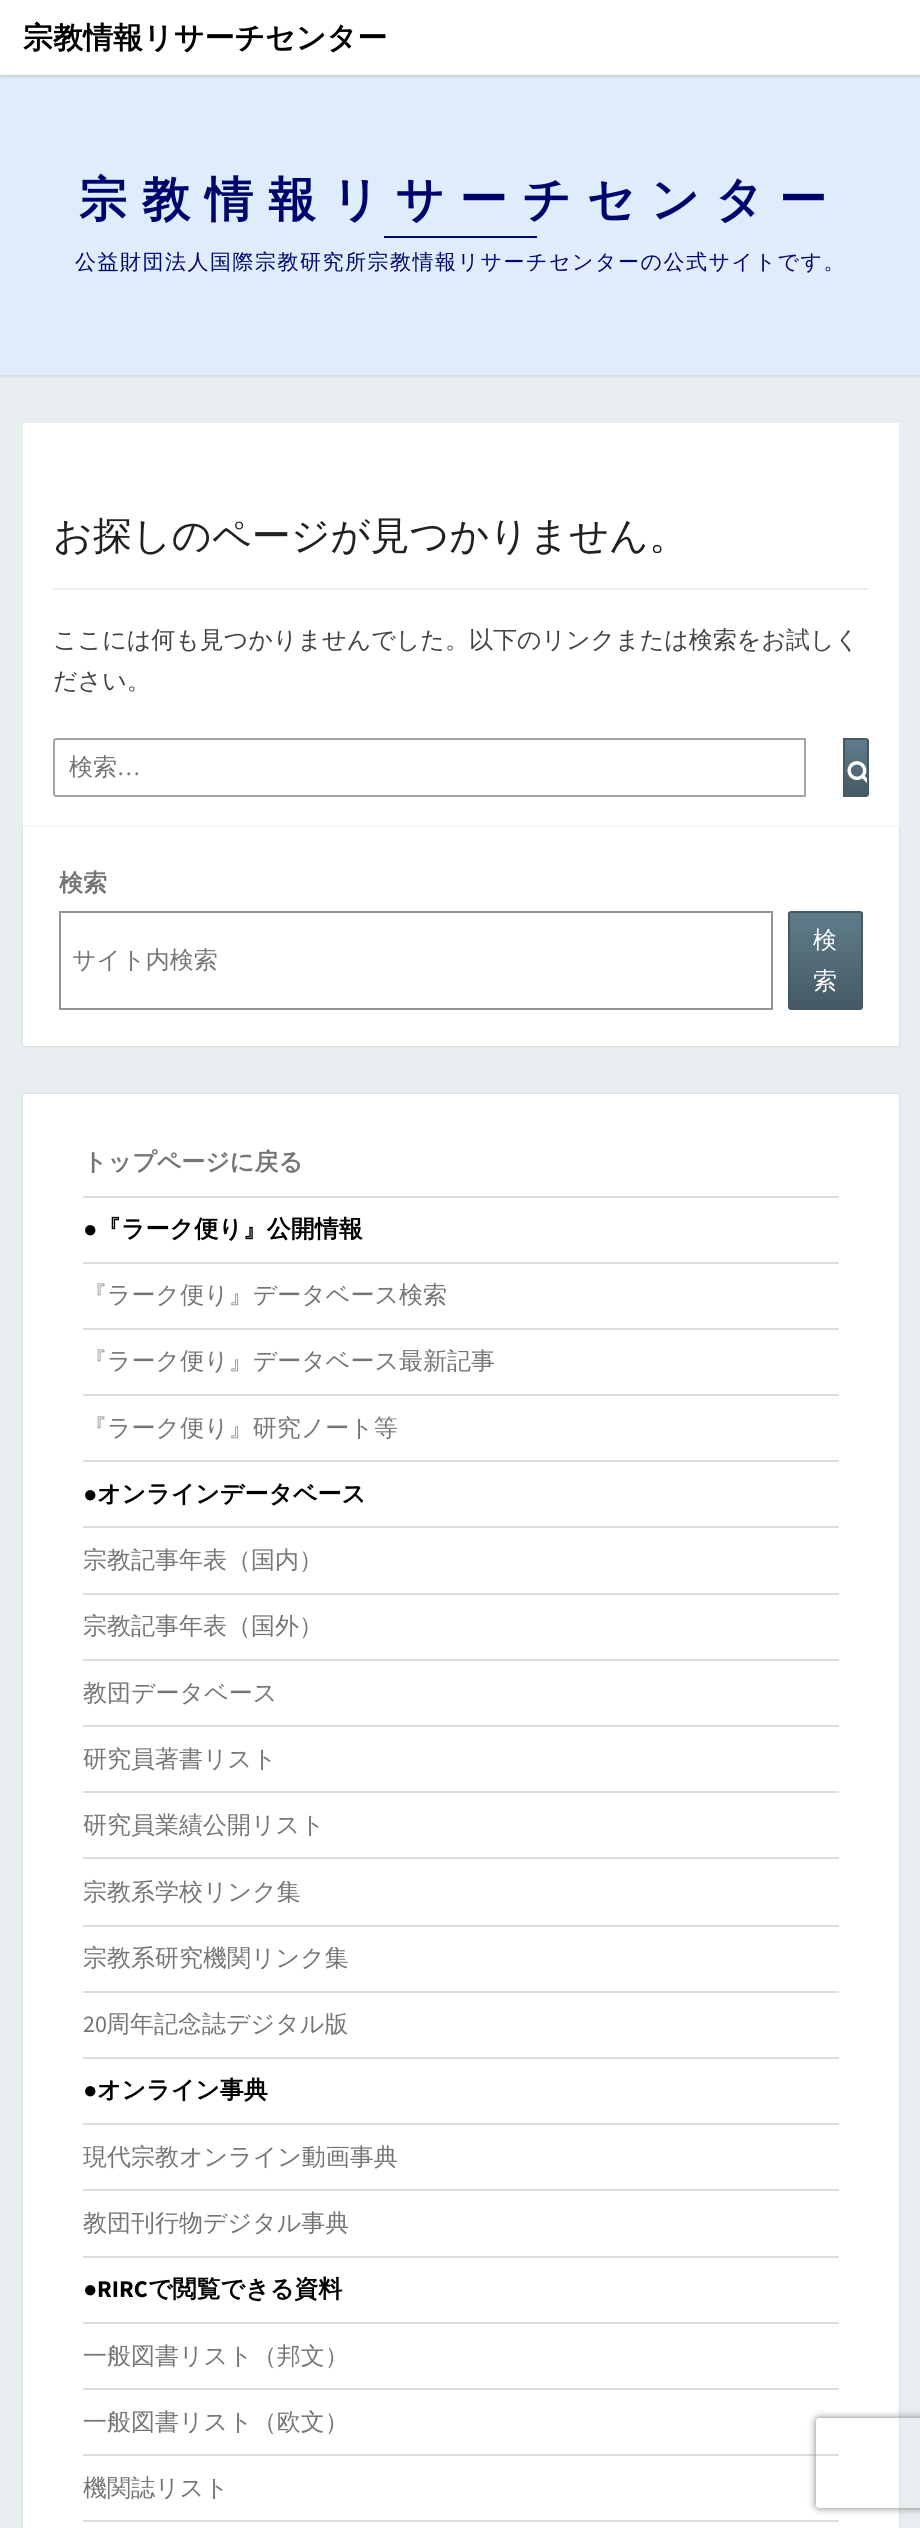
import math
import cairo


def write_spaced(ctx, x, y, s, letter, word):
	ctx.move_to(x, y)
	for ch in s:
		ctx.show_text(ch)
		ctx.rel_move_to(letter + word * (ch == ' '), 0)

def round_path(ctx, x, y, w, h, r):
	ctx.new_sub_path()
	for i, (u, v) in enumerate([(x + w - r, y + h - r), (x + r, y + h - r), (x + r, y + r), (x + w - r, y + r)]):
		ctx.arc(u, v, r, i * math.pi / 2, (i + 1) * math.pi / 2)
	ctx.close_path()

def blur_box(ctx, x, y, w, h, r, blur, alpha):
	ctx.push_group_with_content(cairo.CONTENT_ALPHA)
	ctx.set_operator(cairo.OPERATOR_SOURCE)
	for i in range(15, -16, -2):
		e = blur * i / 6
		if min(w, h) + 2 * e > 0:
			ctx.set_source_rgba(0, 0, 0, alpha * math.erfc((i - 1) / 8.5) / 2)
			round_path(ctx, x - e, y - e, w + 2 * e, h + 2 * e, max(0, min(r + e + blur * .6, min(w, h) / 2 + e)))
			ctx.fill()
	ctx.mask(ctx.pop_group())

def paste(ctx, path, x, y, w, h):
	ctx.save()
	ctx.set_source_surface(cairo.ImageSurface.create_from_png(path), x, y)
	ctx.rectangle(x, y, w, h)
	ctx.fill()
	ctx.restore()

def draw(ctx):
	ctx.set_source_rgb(0.91, 0.929, 0.937)
	ctx.paint()
	ctx.set_source_rgb(0.714, 0.714, 0.714)
	blur_box(ctx, -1, 74, 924, 303, 0, 1, 0.3)
	ctx.set_source_rgb(0.871, 0.925, 0.988)
	ctx.rectangle(0, 75, 920, 300)
	ctx.fill()
	ctx.set_source_rgb(0.392, 0.392, 0.392)
	blur_box(ctx, 0, 2, 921, 75, 0, 1, 0.2)
	ctx.set_source_rgb(1, 1, 1)
	ctx.rectangle(0, 0, 920, 75)
	ctx.fill()
	ctx.select_font_face('WenQuanYi Zen Hei', cairo.FONT_SLANT_NORMAL, cairo.FONT_WEIGHT_BOLD)
	ctx.set_font_size(30)
	ctx.set_source_rgb(0, 0, 0)
	ctx.move_to(23, 48)
	ctx.show_text('宗教情報リサーチセンター')
	ctx.set_font_size(48)
	ctx.set_source_rgb(0, 0.02, 0.427)
	write_spaced(ctx, 79, 216, '宗教情報リサーチセンター', 15, 0)
	ctx.rectangle(384, 236, 153, 2)
	ctx.fill()
	ctx.select_font_face('WenQuanYi Zen Hei Medium')
	ctx.set_font_size(21)
	write_spaced(ctx, 75, 269, '公益財団法人国際宗教研究所宗教情報リサーチセンターの公式サイトです。', 1.5, 0)
	ctx.set_source_rgb(1, 1, 1)
	ctx.rectangle(23, 423, 876, 404)
	ctx.fill()
	ctx.set_source_rgb(0.933, 0.933, 0.933)
	ctx.rectangle(53, 588, 816, 2)
	ctx.fill()
	ctx.set_font_size(39)
	ctx.set_source_rgb(0.129, 0.129, 0.129)
	ctx.move_to(53, 549)
	ctx.show_text('お探しのページが見つかりません。')
	ctx.set_font_size(24)
	ctx.set_source_rgb(0.259, 0.259, 0.259)
	ctx.move_to(53, 648)
	ctx.show_text('ここには何も見つかりませんでした。以下のリンクまたは検索をお試しく')
	ctx.move_to(53, 689)
	ctx.show_text('ださい。')
	ctx.new_path()
	ctx.move_to(56, 739)
	ctx.line_to(805, 739)
	ctx.line_to(805, 796)
	ctx.line_to(56, 796)
	ctx.curve_to(55, 796, 54, 795, 54, 794)
	ctx.line_to(54, 741)
	ctx.curve_to(54, 740, 55, 739, 56, 739)
	ctx.close_path()
	ctx.set_source_rgb(0.667, 0.631, 0.659)
	ctx.stroke()
	ctx.set_source_rgb(0.459, 0.459, 0.459)
	ctx.move_to(69, 775)
	ctx.show_text('検索')
	ctx.select_font_face('Source Sans Pro')
	ctx.move_to(117, 775)
	ctx.show_text('…')
	gradient = cairo.LinearGradient(856, 740, 856, 795)
	gradient.add_color_stop_rgba(0, 0.376, 0.49, 0.545, 1)
	gradient.add_color_stop_rgba(1, 0.271, 0.353, 0.392, 1)
	ctx.set_source(gradient)
	ctx.rectangle(845, 740, 24, 55)
	ctx.fill()
	ctx.new_path()
	ctx.move_to(844, 739)
	ctx.line_to(866, 739)
	ctx.curve_to(867, 739, 868, 740, 868, 741)
	ctx.line_to(868, 794)
	ctx.curve_to(868, 795, 867, 796, 866, 796)
	ctx.line_to(844, 796)
	ctx.close_path()
	ctx.set_source_rgb(0.271, 0.353, 0.392)
	ctx.stroke()
	paste(ctx, 'media/1.png', 847, 761, 20, 22)
	ctx.set_source_rgb(0, 0, 0)
	blur_box(ctx, 23, 827, 876, 219, 0, 1, 0.15)
	ctx.set_source_rgb(1, 1, 1)
	ctx.rectangle(23, 827, 876, 219)
	ctx.fill()
	ctx.select_font_face('WenQuanYi Zen Hei', cairo.FONT_SLANT_NORMAL, cairo.FONT_WEIGHT_BOLD)
	ctx.set_source_rgb(0.459, 0.459, 0.459)
	ctx.move_to(59, 891)
	ctx.show_text('検索')
	ctx.rectangle(60, 912, 712, 97)
	ctx.set_source_rgb(0.58, 0.58, 0.58)
	ctx.stroke()
	ctx.select_font_face('WenQuanYi Zen Hei Medium')
	ctx.set_source_rgb(0.459, 0.459, 0.459)
	ctx.move_to(72, 968)
	ctx.show_text('サイト内検索')
	ctx.save()
	round_path(ctx, 788, 911, 75, 99, 3)
	ctx.clip()
	gradient = cairo.LinearGradient(825, 912, 825, 1008)
	gradient.add_color_stop_rgba(0, 0.376, 0.49, 0.545, 1)
	gradient.add_color_stop_rgba(1, 0.271, 0.353, 0.392, 1)
	ctx.set_source(gradient)
	ctx.rectangle(788, 912, 75, 96)
	ctx.fill()
	ctx.restore()
	round_path(ctx, 789, 912, 73, 97, 2)
	ctx.set_source_rgb(0.271, 0.353, 0.392)
	ctx.stroke()
	ctx.set_source_rgb(1, 1, 1)
	ctx.move_to(813, 948)
	ctx.show_text('検')
	ctx.move_to(813, 989)
	ctx.show_text('索')
	ctx.set_source_rgb(0, 0, 0)
	blur_box(ctx, 23, 1094, 876, 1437, 0, 1, 0.15)
	ctx.set_source_rgb(1, 1, 1)
	ctx.rectangle(23, 1094, 876, 1434)
	ctx.fill()
	ctx.set_source_rgb(0.867, 0.867, 0.867)
	ctx.rectangle(83, 1196, 756, 2)
	ctx.fill()
	ctx.select_font_face('WenQuanYi Zen Hei', cairo.FONT_SLANT_NORMAL, cairo.FONT_WEIGHT_BOLD)
	ctx.set_source_rgb(0.459, 0.459, 0.459)
	ctx.move_to(83, 1170)
	ctx.show_text('トップページに戻る')
	ctx.set_source_rgb(0.867, 0.867, 0.867)
	ctx.rectangle(83, 1262, 756, 2)
	ctx.fill()
	ctx.select_font_face('Liberation Sans', cairo.FONT_SLANT_NORMAL, cairo.FONT_WEIGHT_BOLD)
	ctx.set_source_rgb(0, 0, 0)
	ctx.move_to(83, 1237)
	ctx.show_text('●')
	ctx.select_font_face('WenQuanYi Zen Hei', cairo.FONT_SLANT_NORMAL, cairo.FONT_WEIGHT_BOLD)
	ctx.move_to(97, 1237)
	ctx.show_text('『ラーク便り』公開情報')
	ctx.set_source_rgb(0.867, 0.867, 0.867)
	ctx.rectangle(83, 1328, 756, 2)
	ctx.fill()
	ctx.select_font_face('WenQuanYi Zen Hei Medium')
	ctx.set_source_rgb(0.459, 0.459, 0.459)
	ctx.move_to(83, 1303)
	ctx.show_text('『ラーク便り』データベース検索')
	ctx.set_source_rgb(0.867, 0.867, 0.867)
	ctx.rectangle(83, 1394, 756, 2)
	ctx.fill()
	ctx.set_source_rgb(0.459, 0.459, 0.459)
	ctx.move_to(83, 1369)
	ctx.show_text('『ラーク便り』データベース最新記事')
	ctx.set_source_rgb(0.867, 0.867, 0.867)
	ctx.rectangle(83, 1460, 756, 2)
	ctx.fill()
	ctx.set_source_rgb(0.459, 0.459, 0.459)
	ctx.move_to(83, 1436)
	ctx.show_text('『ラーク便り』研究ノート等')
	ctx.set_source_rgb(0.867, 0.867, 0.867)
	ctx.rectangle(83, 1526, 756, 2)
	ctx.fill()
	ctx.select_font_face('Liberation Sans', cairo.FONT_SLANT_NORMAL, cairo.FONT_WEIGHT_BOLD)
	ctx.set_source_rgb(0, 0, 0)
	ctx.move_to(83, 1502)
	ctx.show_text('●')
	ctx.select_font_face('WenQuanYi Zen Hei', cairo.FONT_SLANT_NORMAL, cairo.FONT_WEIGHT_BOLD)
	ctx.move_to(97, 1502)
	ctx.show_text('オンラインデータベース')
	ctx.set_source_rgb(0.867, 0.867, 0.867)
	ctx.rectangle(83, 1593, 756, 2)
	ctx.fill()
	ctx.select_font_face('WenQuanYi Zen Hei Medium')
	ctx.set_source_rgb(0.459, 0.459, 0.459)
	ctx.move_to(83, 1568)
	ctx.show_text('宗教記事年表（国内）')
	ctx.set_source_rgb(0.867, 0.867, 0.867)
	ctx.rectangle(83, 1659, 756, 2)
	ctx.fill()
	ctx.set_source_rgb(0.459, 0.459, 0.459)
	ctx.move_to(83, 1634)
	ctx.show_text('宗教記事年表（国外）')
	ctx.set_source_rgb(0.867, 0.867, 0.867)
	ctx.rectangle(83, 1725, 756, 2)
	ctx.fill()
	ctx.set_source_rgb(0.459, 0.459, 0.459)
	ctx.move_to(83, 1701)
	ctx.show_text('教団データベース')
	ctx.set_source_rgb(0.867, 0.867, 0.867)
	ctx.rectangle(83, 1791, 756, 2)
	ctx.fill()
	ctx.set_source_rgb(0.459, 0.459, 0.459)
	ctx.move_to(83, 1767)
	ctx.show_text('研究員著書リスト')
	ctx.set_source_rgb(0.867, 0.867, 0.867)
	ctx.rectangle(83, 1857, 756, 2)
	ctx.fill()
	ctx.set_source_rgb(0.459, 0.459, 0.459)
	ctx.move_to(83, 1833)
	ctx.show_text('研究員業績公開リスト')
	ctx.set_source_rgb(0.867, 0.867, 0.867)
	ctx.rectangle(83, 1925, 756, 2)
	ctx.fill()
	ctx.set_source_rgb(0.459, 0.459, 0.459)
	ctx.move_to(83, 1900)
	ctx.show_text('宗教系学校リンク集')
	ctx.set_source_rgb(0.867, 0.867, 0.867)
	ctx.rectangle(83, 1991, 756, 2)
	ctx.fill()
	ctx.set_source_rgb(0.459, 0.459, 0.459)
	ctx.move_to(83, 1966)
	ctx.show_text('宗教系研究機関リンク集')
	ctx.set_source_rgb(0.867, 0.867, 0.867)
	ctx.rectangle(83, 2057, 756, 2)
	ctx.fill()
	ctx.select_font_face('Source Sans Pro')
	ctx.set_source_rgb(0.459, 0.459, 0.459)
	ctx.move_to(83, 2032)
	ctx.show_text('20')
	ctx.select_font_face('WenQuanYi Zen Hei Medium')
	ctx.move_to(106, 2032)
	ctx.show_text('周年記念誌デジタル版')
	ctx.set_source_rgb(0.867, 0.867, 0.867)
	ctx.rectangle(83, 2123, 756, 2)
	ctx.fill()
	ctx.select_font_face('Liberation Sans', cairo.FONT_SLANT_NORMAL, cairo.FONT_WEIGHT_BOLD)
	ctx.set_source_rgb(0, 0, 0)
	ctx.move_to(83, 2098)
	ctx.show_text('●')
	ctx.select_font_face('WenQuanYi Zen Hei', cairo.FONT_SLANT_NORMAL, cairo.FONT_WEIGHT_BOLD)
	ctx.move_to(97, 2098)
	ctx.show_text('オンライン事典')
	ctx.set_source_rgb(0.867, 0.867, 0.867)
	ctx.rectangle(83, 2189, 756, 2)
	ctx.fill()
	ctx.select_font_face('WenQuanYi Zen Hei Medium')
	ctx.set_source_rgb(0.459, 0.459, 0.459)
	ctx.move_to(83, 2165)
	ctx.show_text('現代宗教オンライン動画事典')
	ctx.set_source_rgb(0.867, 0.867, 0.867)
	ctx.rectangle(83, 2256, 756, 2)
	ctx.fill()
	ctx.set_source_rgb(0.459, 0.459, 0.459)
	ctx.move_to(83, 2231)
	ctx.show_text('教団刊行物デジタル事典')
	ctx.set_source_rgb(0.867, 0.867, 0.867)
	ctx.rectangle(83, 2322, 756, 2)
	ctx.fill()
	ctx.select_font_face('Liberation Sans', cairo.FONT_SLANT_NORMAL, cairo.FONT_WEIGHT_BOLD)
	ctx.set_source_rgb(0, 0, 0)
	ctx.move_to(83, 2297)
	ctx.show_text('●')
	ctx.select_font_face('Source Sans Pro', cairo.FONT_SLANT_NORMAL, cairo.FONT_WEIGHT_BOLD)
	ctx.move_to(97, 2297)
	ctx.show_text('RIRC')
	ctx.select_font_face('WenQuanYi Zen Hei', cairo.FONT_SLANT_NORMAL, cairo.FONT_WEIGHT_BOLD)
	ctx.move_to(148, 2297)
	ctx.show_text('で閲覧できる資料')
	ctx.set_source_rgb(0.867, 0.867, 0.867)
	ctx.rectangle(83, 2388, 756, 2)
	ctx.fill()
	ctx.select_font_face('WenQuanYi Zen Hei Medium')
	ctx.set_source_rgb(0.459, 0.459, 0.459)
	ctx.move_to(83, 2364)
	ctx.show_text('一般図書リスト（邦文）')
	ctx.set_source_rgb(0.867, 0.867, 0.867)
	ctx.rectangle(83, 2454, 756, 2)
	ctx.fill()
	ctx.set_source_rgb(0.459, 0.459, 0.459)
	ctx.move_to(83, 2430)
	ctx.show_text('一般図書リスト（欧文）')
	ctx.set_source_rgb(0.867, 0.867, 0.867)
	ctx.rectangle(83, 2520, 756, 2)
	ctx.fill()
	ctx.set_source_rgb(0.459, 0.459, 0.459)
	ctx.move_to(83, 2496)
	ctx.show_text('機関誌リスト')
	ctx.save()
	ctx.set_fill_rule(cairo.FILL_RULE_EVEN_ODD)
	ctx.new_path()
	ctx.move_to(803, 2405)
	ctx.line_to(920, 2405)
	ctx.line_to(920, 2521)
	ctx.line_to(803, 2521)
	ctx.close_path()
	ctx.move_to(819, 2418)
	ctx.line_to(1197, 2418)
	ctx.curve_to(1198.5, 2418, 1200, 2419.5, 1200, 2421)
	ctx.line_to(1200, 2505)
	ctx.curve_to(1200, 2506.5, 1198.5, 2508, 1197, 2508)
	ctx.line_to(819, 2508)
	ctx.curve_to(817.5, 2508, 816, 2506.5, 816, 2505)
	ctx.line_to(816, 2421)
	ctx.curve_to(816, 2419.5, 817.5, 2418, 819, 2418)
	ctx.close_path()
	ctx.clip()
	ctx.set_source_rgb(0.502, 0.502, 0.502)
	blur_box(ctx, 816, 2418, 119, 90, 3, 4, 1)
	ctx.restore()


surface = cairo.ImageSurface(cairo.FORMAT_RGB24, 920, 2528)
ctx = cairo.Context(surface)
options = cairo.FontOptions()
options.set_hint_metrics(cairo.HINT_METRICS_OFF)
options.set_hint_style(cairo.HINT_STYLE_NONE)
ctx.set_font_options(options)
ctx.set_miter_limit(4)
draw(ctx)
surface.write_to_png('image.png')
